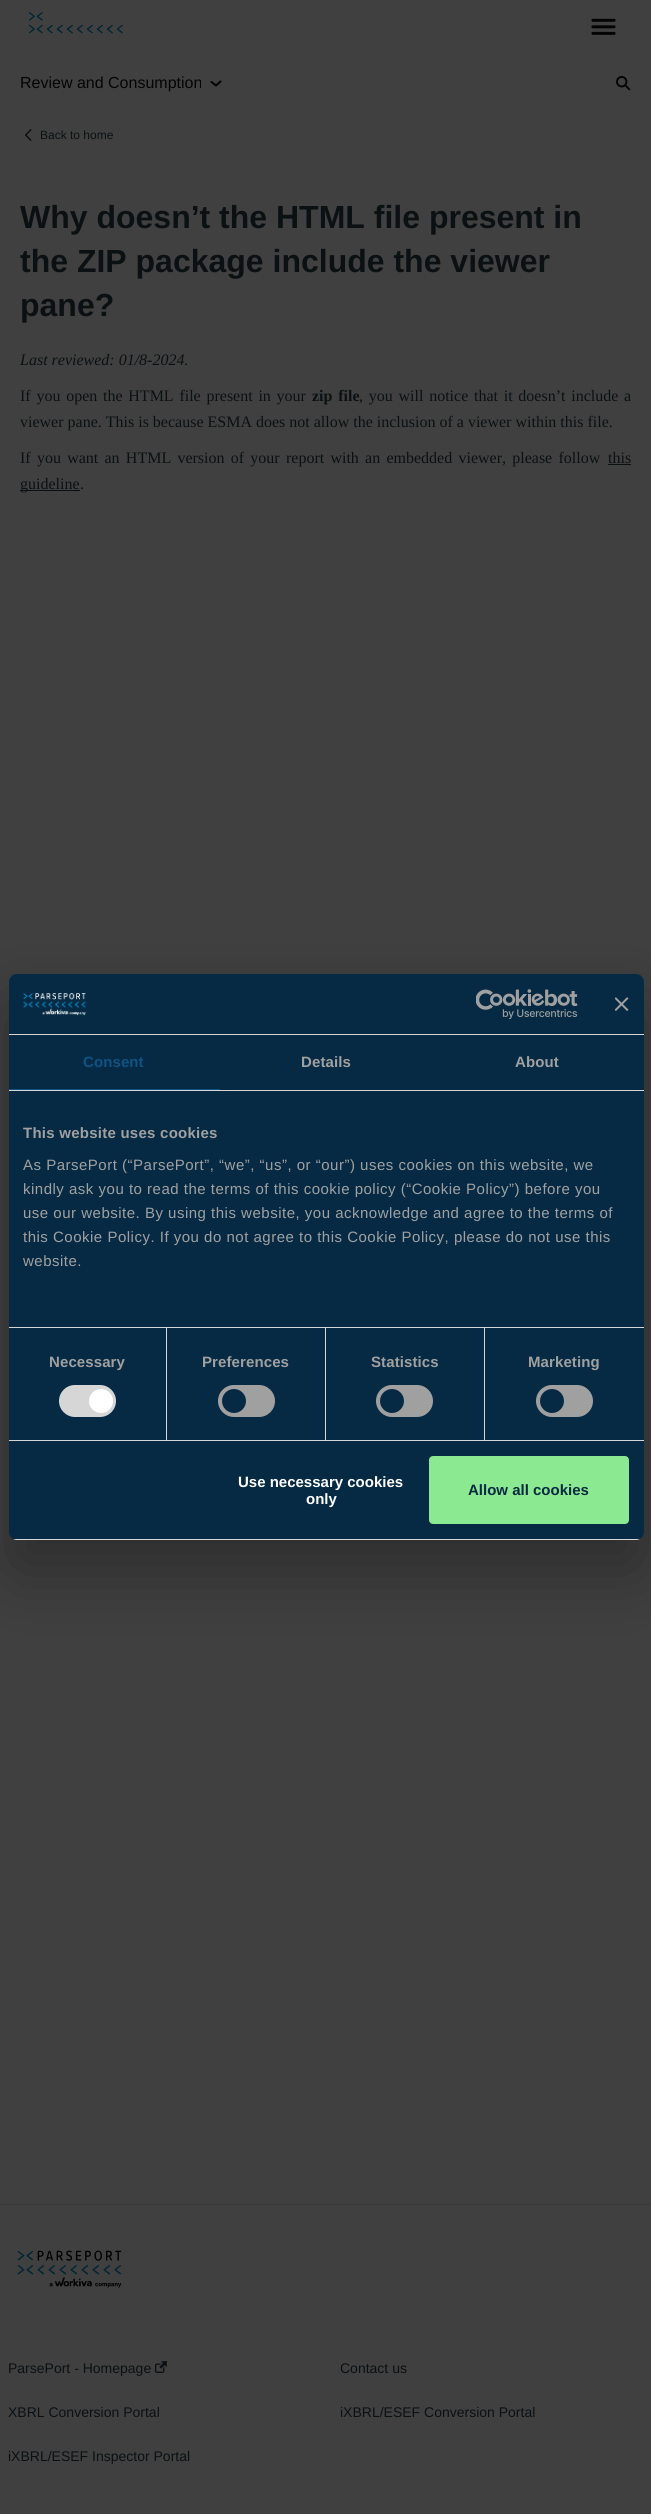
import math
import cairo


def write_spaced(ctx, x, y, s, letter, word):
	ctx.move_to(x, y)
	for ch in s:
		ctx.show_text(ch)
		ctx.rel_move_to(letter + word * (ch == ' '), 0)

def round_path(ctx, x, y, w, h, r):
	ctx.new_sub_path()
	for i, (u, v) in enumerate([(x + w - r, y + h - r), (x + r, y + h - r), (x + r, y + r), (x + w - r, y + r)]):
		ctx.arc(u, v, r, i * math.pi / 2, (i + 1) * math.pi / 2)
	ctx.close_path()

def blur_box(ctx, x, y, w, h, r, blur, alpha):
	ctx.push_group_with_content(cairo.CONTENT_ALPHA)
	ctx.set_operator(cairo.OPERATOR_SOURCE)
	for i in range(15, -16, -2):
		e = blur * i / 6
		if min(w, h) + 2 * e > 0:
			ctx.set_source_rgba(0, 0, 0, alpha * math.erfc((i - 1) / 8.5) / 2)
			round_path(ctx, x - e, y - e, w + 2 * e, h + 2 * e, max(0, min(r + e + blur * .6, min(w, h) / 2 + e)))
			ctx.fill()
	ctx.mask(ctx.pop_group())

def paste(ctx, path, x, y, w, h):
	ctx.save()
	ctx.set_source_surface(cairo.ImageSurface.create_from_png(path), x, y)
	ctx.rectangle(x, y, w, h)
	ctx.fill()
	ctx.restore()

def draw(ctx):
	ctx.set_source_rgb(0.251, 0.251, 0.251)
	ctx.paint()
	paste(ctx, 'media/1.png', 28, 12, 95, 22)
	paste(ctx, 'media/2.png', 591, 18, 25, 17)
	ctx.select_font_face('Liberation Sans')
	ctx.set_font_size(16)
	ctx.set_source_rgb(0.016, 0.016, 0.016)
	ctx.move_to(20, 88)
	ctx.show_text('Review and Consumption')
	ctx.new_path()
	ctx.move_to(220.5, 81.5)
	ctx.line_to(216, 85.5)
	ctx.line_to(211.5, 82)
	ctx.set_line_cap(cairo.LINE_CAP_ROUND)
	ctx.set_line_join(cairo.LINE_JOIN_ROUND)
	ctx.stroke()
	paste(ctx, 'media/3.png', 616, 76, 15, 15)
	paste(ctx, 'media/4.png', 25, 129, 7, 12)
	ctx.set_font_size(12)
	ctx.set_source_rgb(0.043, 0.063, 0.078)
	ctx.move_to(40, 139)
	ctx.show_text('Back to home')
	ctx.select_font_face('Liberation Sans', cairo.FONT_SLANT_NORMAL, cairo.FONT_WEIGHT_BOLD)
	ctx.set_font_size(32)
	for x, y, s in [
		(20, 228, 'Why doesn’t the HTML file present in'),
		(20, 272, 'the ZIP package include the viewer'),
		(20, 316, 'pane?'),
	]:
		ctx.move_to(x, y)
		ctx.show_text(s)
	ctx.select_font_face('Liberation Serif', cairo.FONT_SLANT_ITALIC)
	ctx.set_font_size(16)
	ctx.move_to(20, 365)
	ctx.show_text('Last reviewed: 01/8-2024.')
	ctx.select_font_face('Liberation Serif')
	write_spaced(ctx, 20, 401, 'If you open the HTML file present in your', 0, 1.75)
	ctx.select_font_face('Liberation Serif', cairo.FONT_SLANT_NORMAL, cairo.FONT_WEIGHT_BOLD)
	write_spaced(ctx, 312, 401, 'zip file', 0, 1.75)
	ctx.select_font_face('Liberation Serif')
	write_spaced(ctx, 359, 401, ', you will notice that it doesn’t include a', 0, 1.75)
	ctx.move_to(20, 427)
	ctx.show_text('viewer pane. This is because ESMA does not allow the inclusion of a viewer within this file.')
	write_spaced(ctx, 20, 463, 'If you want an HTML version of your report with an embedded viewer, please follow', 0, 2.25)
	ctx.move_to(608, 463)
	ctx.show_text('this')
	ctx.rectangle(608, 464, 23, 1)
	ctx.fill()
	ctx.rectangle(20, 490, 60, 1)
	ctx.fill()
	ctx.move_to(20, 489)
	ctx.show_text('guideline')
	ctx.move_to(80, 489)
	ctx.show_text('.')
	ctx.set_source_rgb(0, 0, 0)
	blur_box(ctx, 9, 1006, 635, 566, 8, 34, 0.3)
	ctx.set_source_rgb(0.027, 0.165, 0.267)
	round_path(ctx, 9, 974, 635, 566, 8)
	ctx.fill()
	ctx.set_source_rgb(0.839, 0.839, 0.839)
	ctx.rectangle(9, 1034, 635, 1)
	ctx.fill()
	paste(ctx, 'media/5.png', 23, 993, 63, 23)
	paste(ctx, 'media/6.png', 476, 989, 102, 30)
	paste(ctx, 'media/7.png', 615, 997, 14, 14)
	ctx.rectangle(9, 1090, 635, 1)
	ctx.fill()
	ctx.set_source_rgb(0.059, 0.325, 0.522)
	ctx.rectangle(9, 1089, 211, 1)
	ctx.fill()
	ctx.select_font_face('Liberation Sans', cairo.FONT_SLANT_NORMAL, cairo.FONT_WEIGHT_BOLD)
	ctx.set_font_size(15)
	write_spaced(ctx, 83, 1067, 'Consent', 0.1, 0)
	ctx.set_source_rgb(0.627, 0.627, 0.627)
	write_spaced(ctx, 301, 1067, 'Details', 0.1, 0)
	write_spaced(ctx, 515, 1067, 'About', 0.1, 0)
	ctx.set_source_rgb(0.839, 0.839, 0.839)
	ctx.rectangle(9, 1327, 635, 1)
	ctx.fill()
	ctx.set_source_rgb(0.627, 0.627, 0.627)
	write_spaced(ctx, 23, 1138, 'This website uses cookies', 0.25, 0)
	ctx.select_font_face('Liberation Sans')
	for x, y, s in [
		(23, 1170, 'As ParsePort (“ParsePort”, “we”, “us”, or “our”) uses cookies on this website, we'),
		(23, 1194, 'kindly ask you to read the terms of this cookie policy (“Cookie Policy”) before you'),
		(23, 1218, 'use our website. By using this website, you acknowledge and agree to the terms of'),
		(23, 1242, 'this Cookie Policy. If you do not agree to this Cookie Policy, please do not use this'),
		(23, 1266, 'website.'),
	]:
		write_spaced(ctx, x, y, s, 0.5, 0)
	ctx.set_source_rgb(0.839, 0.839, 0.839)
	ctx.rectangle(9, 1440, 635, 1)
	ctx.fill()
	ctx.rectangle(166, 1328, 1, 112)
	ctx.fill()
	ctx.select_font_face('Liberation Sans', cairo.FONT_SLANT_NORMAL, cairo.FONT_WEIGHT_BOLD)
	ctx.set_source_rgb(0.627, 0.627, 0.627)
	write_spaced(ctx, 49, 1367, 'Necessary', 0.1, 0)
	ctx.set_source_rgb(0.839, 0.839, 0.839)
	round_path(ctx, 59, 1385, 57, 32, 16)
	ctx.fill()
	ctx.set_source_rgb(1, 1, 1)
	ctx.arc(101, 1401, 12, 0, 2 * math.pi)
	ctx.fill()
	ctx.set_source_rgb(0.839, 0.839, 0.839)
	ctx.rectangle(325, 1328, 1, 112)
	ctx.fill()
	ctx.set_source_rgb(0.627, 0.627, 0.627)
	write_spaced(ctx, 202, 1367, 'Preferences', 0.1, 0)
	round_path(ctx, 218, 1385, 57, 32, 16)
	ctx.fill()
	ctx.set_source_rgb(0.027, 0.165, 0.267)
	ctx.arc(234, 1401, 12, 0, 2 * math.pi)
	ctx.fill()
	ctx.set_source_rgb(0.839, 0.839, 0.839)
	ctx.rectangle(484, 1328, 1, 112)
	ctx.fill()
	ctx.set_source_rgb(0.627, 0.627, 0.627)
	write_spaced(ctx, 371, 1367, 'Statistics', 0.1, 0)
	round_path(ctx, 376, 1385, 57, 32, 16)
	ctx.fill()
	ctx.set_source_rgb(0.027, 0.165, 0.267)
	ctx.arc(392, 1401, 12, 0, 2 * math.pi)
	ctx.fill()
	ctx.set_source_rgb(0.627, 0.627, 0.627)
	write_spaced(ctx, 528, 1367, 'Marketing', 0.1, 0)
	round_path(ctx, 536, 1385, 57, 32, 16)
	ctx.fill()
	ctx.set_source_rgb(0.027, 0.165, 0.267)
	ctx.arc(552, 1401, 12, 0, 2 * math.pi)
	ctx.fill()
	ctx.save()
	round_path(ctx, 9, 974, 635, 566, 8)
	ctx.clip()
	ctx.set_source_rgb(0.839, 0.839, 0.839)
	ctx.rectangle(9, 1539, 635, 1)
	ctx.fill()
	ctx.restore()
	ctx.set_source_rgb(1, 1, 1)
	ctx.move_to(238, 1487)
	ctx.show_text('Use necessary cookies')
	ctx.move_to(306, 1504)
	ctx.show_text('only')
	ctx.set_source_rgb(0.541, 0.914, 0.569)
	round_path(ctx, 430, 1457, 198, 66, 3)
	ctx.fill_preserve()
	ctx.set_line_cap(cairo.LINE_CAP_BUTT)
	ctx.set_line_join(cairo.LINE_JOIN_MITER)
	ctx.stroke()
	ctx.set_source_rgb(0.027, 0.165, 0.267)
	ctx.move_to(468, 1495)
	ctx.show_text('Allow all cookies')
	ctx.set_source_rgb(0.227, 0.227, 0.227)
	ctx.rectangle(0, 2204, 651, 1)
	ctx.fill()
	paste(ctx, 'media/8.png', 17, 2250, 105, 38)
	ctx.select_font_face('Liberation Sans')
	ctx.set_font_size(14)
	ctx.set_source_rgb(0.043, 0.063, 0.078)
	ctx.move_to(8, 2373)
	ctx.show_text('ParsePort - Homepage')
	paste(ctx, 'media/9.png', 155, 2361, 12, 12)
	for x, y, s in [
		(340, 2373, 'Contact us'),
		(8, 2417, 'XBRL Conversion Portal'),
		(340, 2417, 'iXBRL/ESEF Conversion Portal'),
		(8, 2461, 'iXBRL/ESEF Inspector Portal'),
	]:
		ctx.move_to(x, y)
		ctx.show_text(s)


surface = cairo.ImageSurface(cairo.FORMAT_RGB24, 651, 2514)
ctx = cairo.Context(surface)
options = cairo.FontOptions()
options.set_hint_metrics(cairo.HINT_METRICS_OFF)
options.set_hint_style(cairo.HINT_STYLE_NONE)
ctx.set_font_options(options)
ctx.set_miter_limit(4)
draw(ctx)
surface.write_to_png('image.png')
